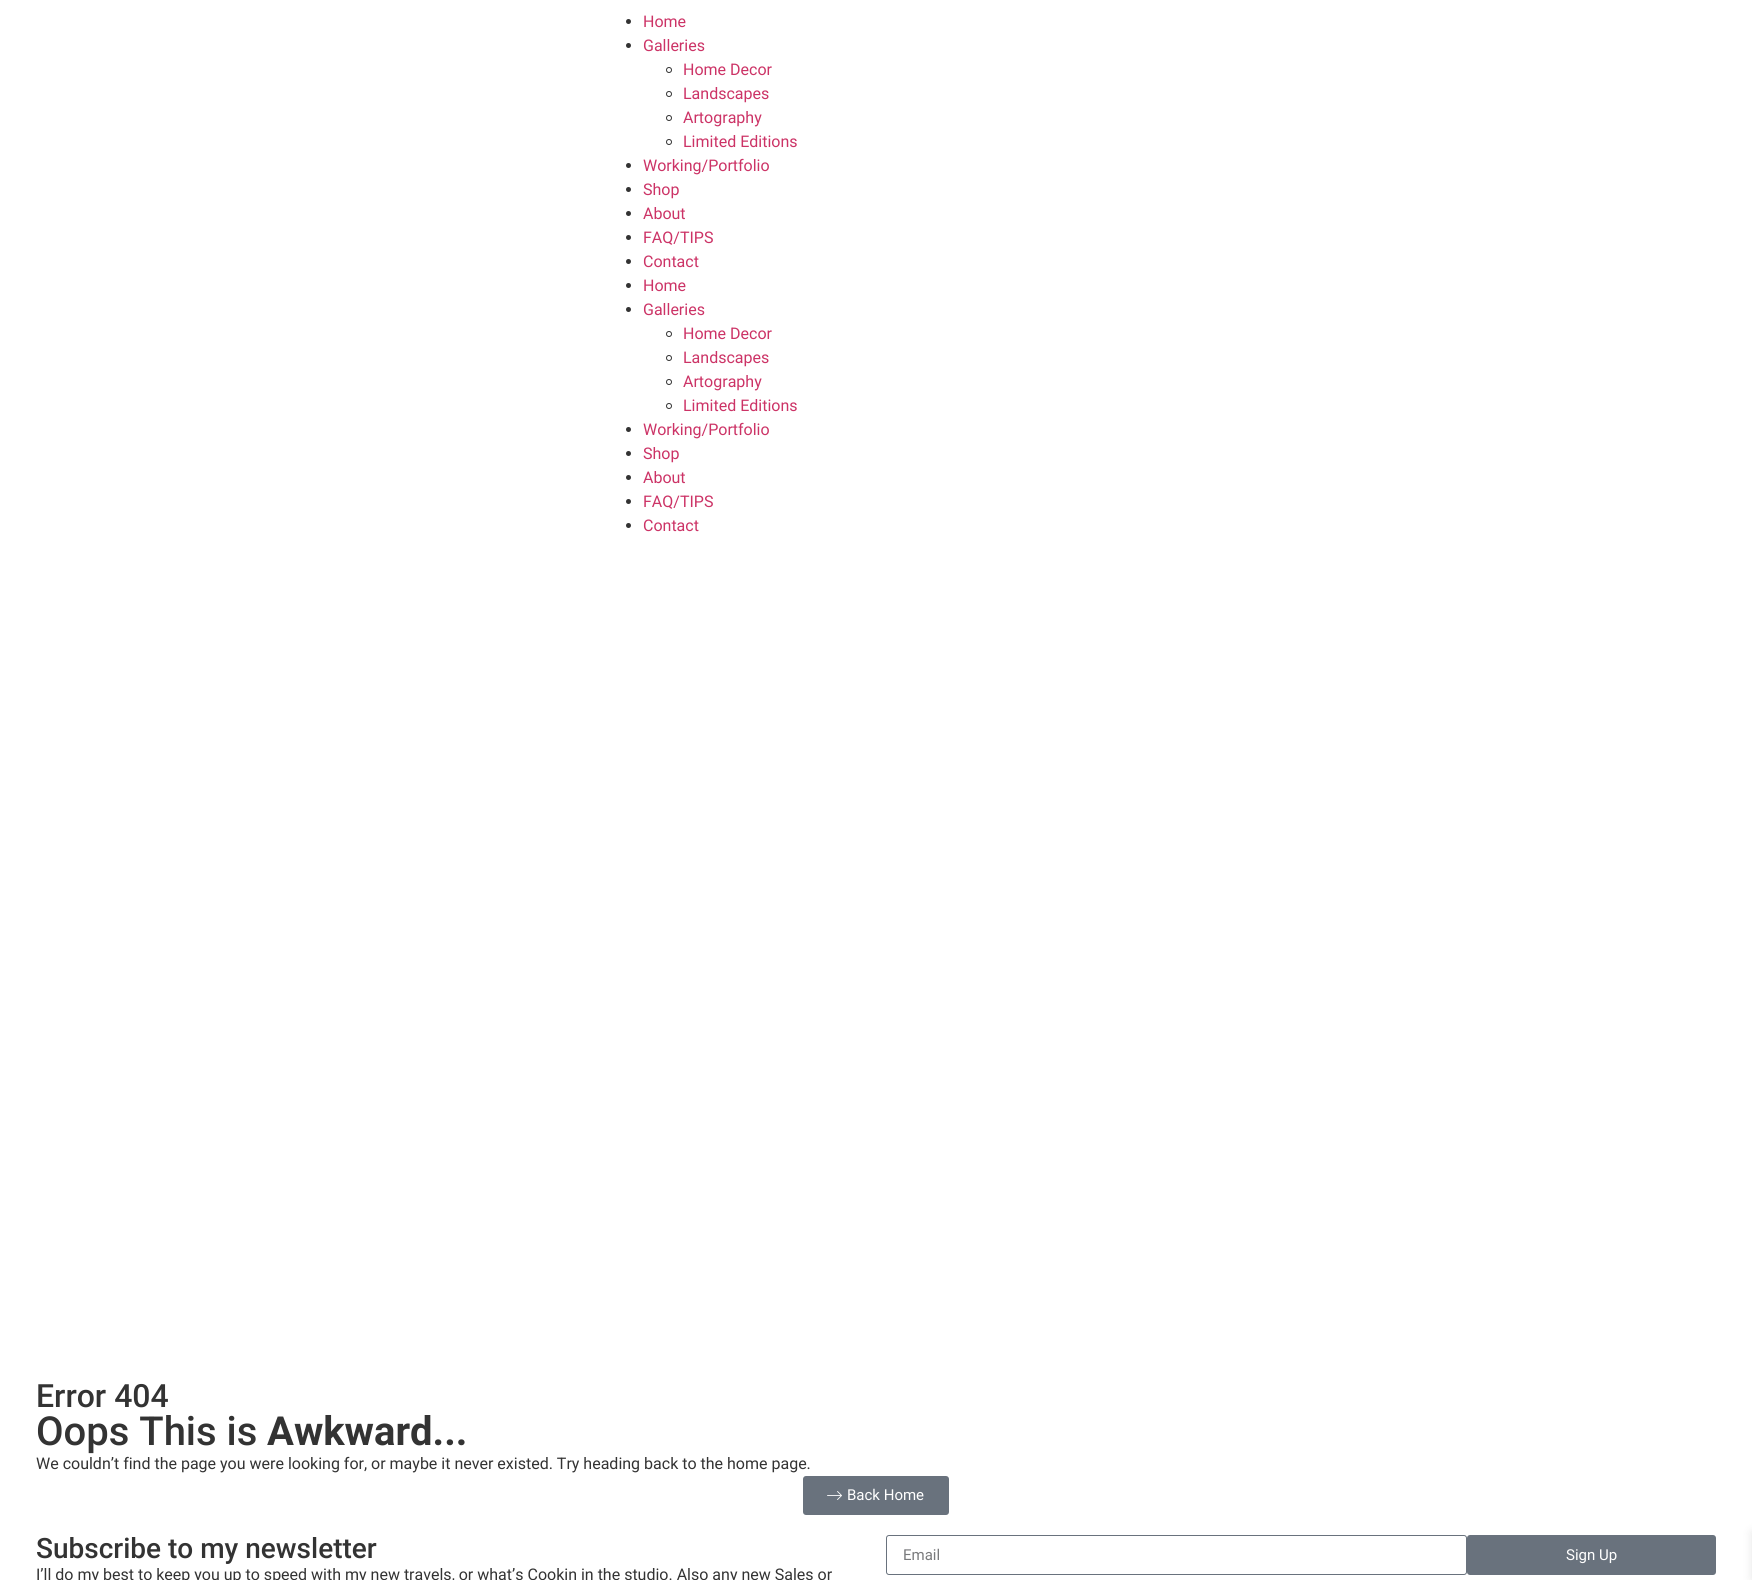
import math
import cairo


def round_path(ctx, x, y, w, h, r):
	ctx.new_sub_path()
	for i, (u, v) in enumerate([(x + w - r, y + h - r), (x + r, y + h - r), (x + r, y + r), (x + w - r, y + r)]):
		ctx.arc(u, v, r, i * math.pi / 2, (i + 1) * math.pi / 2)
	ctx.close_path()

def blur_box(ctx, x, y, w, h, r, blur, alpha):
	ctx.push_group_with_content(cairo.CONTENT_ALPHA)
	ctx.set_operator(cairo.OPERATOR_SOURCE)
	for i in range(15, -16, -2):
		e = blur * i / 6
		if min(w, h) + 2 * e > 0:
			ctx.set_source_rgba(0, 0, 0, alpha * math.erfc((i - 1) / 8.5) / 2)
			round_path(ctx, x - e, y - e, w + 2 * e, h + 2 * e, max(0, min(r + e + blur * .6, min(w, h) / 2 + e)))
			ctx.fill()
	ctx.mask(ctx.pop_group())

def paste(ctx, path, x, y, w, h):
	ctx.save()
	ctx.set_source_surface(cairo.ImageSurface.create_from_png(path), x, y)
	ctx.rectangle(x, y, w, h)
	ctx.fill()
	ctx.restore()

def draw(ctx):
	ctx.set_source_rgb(1, 1, 1)
	ctx.paint()
	ctx.set_source_rgb(0.2, 0.2, 0.2)
	ctx.arc(628.5, 21.5, 2.5, 0, 2 * math.pi)
	ctx.fill()
	ctx.select_font_face('Roboto')
	ctx.set_font_size(16)
	ctx.set_source_rgb(0.8, 0.2, 0.4)
	ctx.move_to(643, 27)
	ctx.show_text('Home')
	ctx.set_source_rgb(0.2, 0.2, 0.2)
	ctx.new_path()
	ctx.arc(628.5, 45.5, 2.5, 0, 2 * math.pi)
	ctx.fill()
	ctx.set_source_rgb(0.8, 0.2, 0.4)
	ctx.move_to(643, 51)
	ctx.show_text('Galleries')
	ctx.new_path()
	ctx.arc(669, 70, 2.5, 0, 2 * math.pi)
	ctx.set_source_rgb(0.2, 0.2, 0.2)
	ctx.set_line_width(1)
	ctx.stroke()
	ctx.set_source_rgb(0.8, 0.2, 0.4)
	ctx.move_to(683, 75)
	ctx.show_text('Home Decor')
	ctx.new_path()
	ctx.arc(669, 94, 2.5, 0, 2 * math.pi)
	ctx.set_source_rgb(0.2, 0.2, 0.2)
	ctx.stroke()
	ctx.set_source_rgb(0.8, 0.2, 0.4)
	ctx.move_to(683, 99)
	ctx.show_text('Landscapes')
	ctx.new_path()
	ctx.arc(669, 118, 2.5, 0, 2 * math.pi)
	ctx.set_source_rgb(0.2, 0.2, 0.2)
	ctx.stroke()
	ctx.set_source_rgb(0.8, 0.2, 0.4)
	ctx.move_to(683, 123)
	ctx.show_text('Artography')
	ctx.new_path()
	ctx.arc(669, 142, 2.5, 0, 2 * math.pi)
	ctx.set_source_rgb(0.2, 0.2, 0.2)
	ctx.stroke()
	ctx.set_source_rgb(0.8, 0.2, 0.4)
	ctx.move_to(683, 147)
	ctx.show_text('Limited Editions')
	ctx.set_source_rgb(0.2, 0.2, 0.2)
	ctx.new_path()
	ctx.arc(628.5, 165.5, 2.5, 0, 2 * math.pi)
	ctx.fill()
	ctx.set_source_rgb(0.8, 0.2, 0.4)
	ctx.move_to(643, 171)
	ctx.show_text('Working/Portfolio')
	ctx.set_source_rgb(0.2, 0.2, 0.2)
	ctx.new_path()
	ctx.arc(628.5, 189.5, 2.5, 0, 2 * math.pi)
	ctx.fill()
	ctx.set_source_rgb(0.8, 0.2, 0.4)
	ctx.move_to(643, 195)
	ctx.show_text('Shop')
	ctx.set_source_rgb(0.2, 0.2, 0.2)
	ctx.new_path()
	ctx.arc(628.5, 213.5, 2.5, 0, 2 * math.pi)
	ctx.fill()
	ctx.set_source_rgb(0.8, 0.2, 0.4)
	ctx.move_to(643, 219)
	ctx.show_text('About')
	ctx.set_source_rgb(0.2, 0.2, 0.2)
	ctx.new_path()
	ctx.arc(628.5, 237.5, 2.5, 0, 2 * math.pi)
	ctx.fill()
	ctx.set_source_rgb(0.8, 0.2, 0.4)
	ctx.move_to(643, 243)
	ctx.show_text('FAQ/TIPS')
	ctx.set_source_rgb(0.2, 0.2, 0.2)
	ctx.new_path()
	ctx.arc(628.5, 261.5, 2.5, 0, 2 * math.pi)
	ctx.fill()
	ctx.set_source_rgb(0.8, 0.2, 0.4)
	ctx.move_to(643, 267)
	ctx.show_text('Contact')
	ctx.set_source_rgb(0.2, 0.2, 0.2)
	ctx.new_path()
	ctx.arc(628.5, 285.5, 2.5, 0, 2 * math.pi)
	ctx.fill()
	ctx.set_source_rgb(0.8, 0.2, 0.4)
	ctx.move_to(643, 291)
	ctx.show_text('Home')
	ctx.set_source_rgb(0.2, 0.2, 0.2)
	ctx.new_path()
	ctx.arc(628.5, 309.5, 2.5, 0, 2 * math.pi)
	ctx.fill()
	ctx.set_source_rgb(0.8, 0.2, 0.4)
	ctx.move_to(643, 315)
	ctx.show_text('Galleries')
	ctx.new_path()
	ctx.arc(669, 334, 2.5, 0, 2 * math.pi)
	ctx.set_source_rgb(0.2, 0.2, 0.2)
	ctx.stroke()
	ctx.set_source_rgb(0.8, 0.2, 0.4)
	ctx.move_to(683, 339)
	ctx.show_text('Home Decor')
	ctx.new_path()
	ctx.arc(669, 358, 2.5, 0, 2 * math.pi)
	ctx.set_source_rgb(0.2, 0.2, 0.2)
	ctx.stroke()
	ctx.set_source_rgb(0.8, 0.2, 0.4)
	ctx.move_to(683, 363)
	ctx.show_text('Landscapes')
	ctx.new_path()
	ctx.arc(669, 382, 2.5, 0, 2 * math.pi)
	ctx.set_source_rgb(0.2, 0.2, 0.2)
	ctx.stroke()
	ctx.set_source_rgb(0.8, 0.2, 0.4)
	ctx.move_to(683, 387)
	ctx.show_text('Artography')
	ctx.new_path()
	ctx.arc(669, 406, 2.5, 0, 2 * math.pi)
	ctx.set_source_rgb(0.2, 0.2, 0.2)
	ctx.stroke()
	ctx.set_source_rgb(0.8, 0.2, 0.4)
	ctx.move_to(683, 411)
	ctx.show_text('Limited Editions')
	ctx.set_source_rgb(0.2, 0.2, 0.2)
	ctx.new_path()
	ctx.arc(628.5, 429.5, 2.5, 0, 2 * math.pi)
	ctx.fill()
	ctx.set_source_rgb(0.8, 0.2, 0.4)
	ctx.move_to(643, 435)
	ctx.show_text('Working/Portfolio')
	ctx.set_source_rgb(0.2, 0.2, 0.2)
	ctx.new_path()
	ctx.arc(628.5, 453.5, 2.5, 0, 2 * math.pi)
	ctx.fill()
	ctx.set_source_rgb(0.8, 0.2, 0.4)
	ctx.move_to(643, 459)
	ctx.show_text('Shop')
	ctx.set_source_rgb(0.2, 0.2, 0.2)
	ctx.new_path()
	ctx.arc(628.5, 477.5, 2.5, 0, 2 * math.pi)
	ctx.fill()
	ctx.set_source_rgb(0.8, 0.2, 0.4)
	ctx.move_to(643, 483)
	ctx.show_text('About')
	ctx.set_source_rgb(0.2, 0.2, 0.2)
	ctx.new_path()
	ctx.arc(628.5, 501.5, 2.5, 0, 2 * math.pi)
	ctx.fill()
	ctx.set_source_rgb(0.8, 0.2, 0.4)
	ctx.move_to(643, 507)
	ctx.show_text('FAQ/TIPS')
	ctx.set_source_rgb(0.2, 0.2, 0.2)
	ctx.new_path()
	ctx.arc(628.5, 525.5, 2.5, 0, 2 * math.pi)
	ctx.fill()
	ctx.set_source_rgb(0.8, 0.2, 0.4)
	ctx.move_to(643, 531)
	ctx.show_text('Contact')
	ctx.select_font_face('Roboto Medium')
	ctx.set_font_size(32)
	ctx.set_source_rgb(0.2, 0.2, 0.2)
	ctx.move_to(36, 1407)
	ctx.show_text('Error 404')
	ctx.set_font_size(40)
	ctx.move_to(36, 1445)
	ctx.show_text('Oops This is')
	ctx.select_font_face('Roboto', cairo.FONT_SLANT_NORMAL, cairo.FONT_WEIGHT_BOLD)
	ctx.move_to(267, 1445)
	ctx.show_text('Awkward...')
	ctx.select_font_face('Roboto')
	ctx.set_font_size(16)
	ctx.move_to(36, 1469)
	ctx.show_text('We couldn’t find the page you were looking for, or maybe it never existed. Try heading back to the home page.')
	ctx.set_source_rgb(0.412, 0.447, 0.49)
	round_path(ctx, 803, 1476, 146, 39, 3)
	ctx.fill()
	paste(ctx, 'media/1.png', 827, 1491, 15, 9)
	ctx.set_font_size(15)
	ctx.set_source_rgb(1, 1, 1)
	ctx.move_to(847, 1500)
	ctx.show_text('Back Home')
	ctx.select_font_face('Roboto Medium')
	ctx.set_font_size(28)
	ctx.set_source_rgb(0.2, 0.2, 0.2)
	ctx.move_to(36, 1558)
	ctx.show_text('Subscribe to my newsletter')
	ctx.select_font_face('Roboto')
	ctx.set_font_size(16)
	ctx.move_to(36, 1580)
	ctx.show_text('I’ll do my best to keep you up to speed with my new travels, or what’s Cookin in the studio. Also any new Sales or')
	round_path(ctx, 886.5, 1535.5, 580, 39, 2.5)
	ctx.set_source_rgb(0.412, 0.447, 0.49)
	ctx.stroke()
	ctx.set_font_size(15)
	ctx.set_source_rgb(0.475, 0.478, 0.486)
	ctx.move_to(903, 1560)
	ctx.show_text('Email')
	ctx.set_source_rgb(0.412, 0.447, 0.49)
	round_path(ctx, 1467, 1535, 249, 40, 3)
	ctx.fill()
	ctx.set_source_rgb(1, 1, 1)
	ctx.move_to(1566, 1560)
	ctx.show_text('Sign Up')
	ctx.set_source_rgb(0, 0, 0)
	blur_box(ctx, 1752, 1532, 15, 47, 0, 5, 0.1)


surface = cairo.ImageSurface(cairo.FORMAT_RGB24, 1752, 1580)
ctx = cairo.Context(surface)
options = cairo.FontOptions()
options.set_hint_metrics(cairo.HINT_METRICS_OFF)
options.set_hint_style(cairo.HINT_STYLE_NONE)
ctx.set_font_options(options)
ctx.set_miter_limit(4)
draw(ctx)
surface.write_to_png('image.png')
